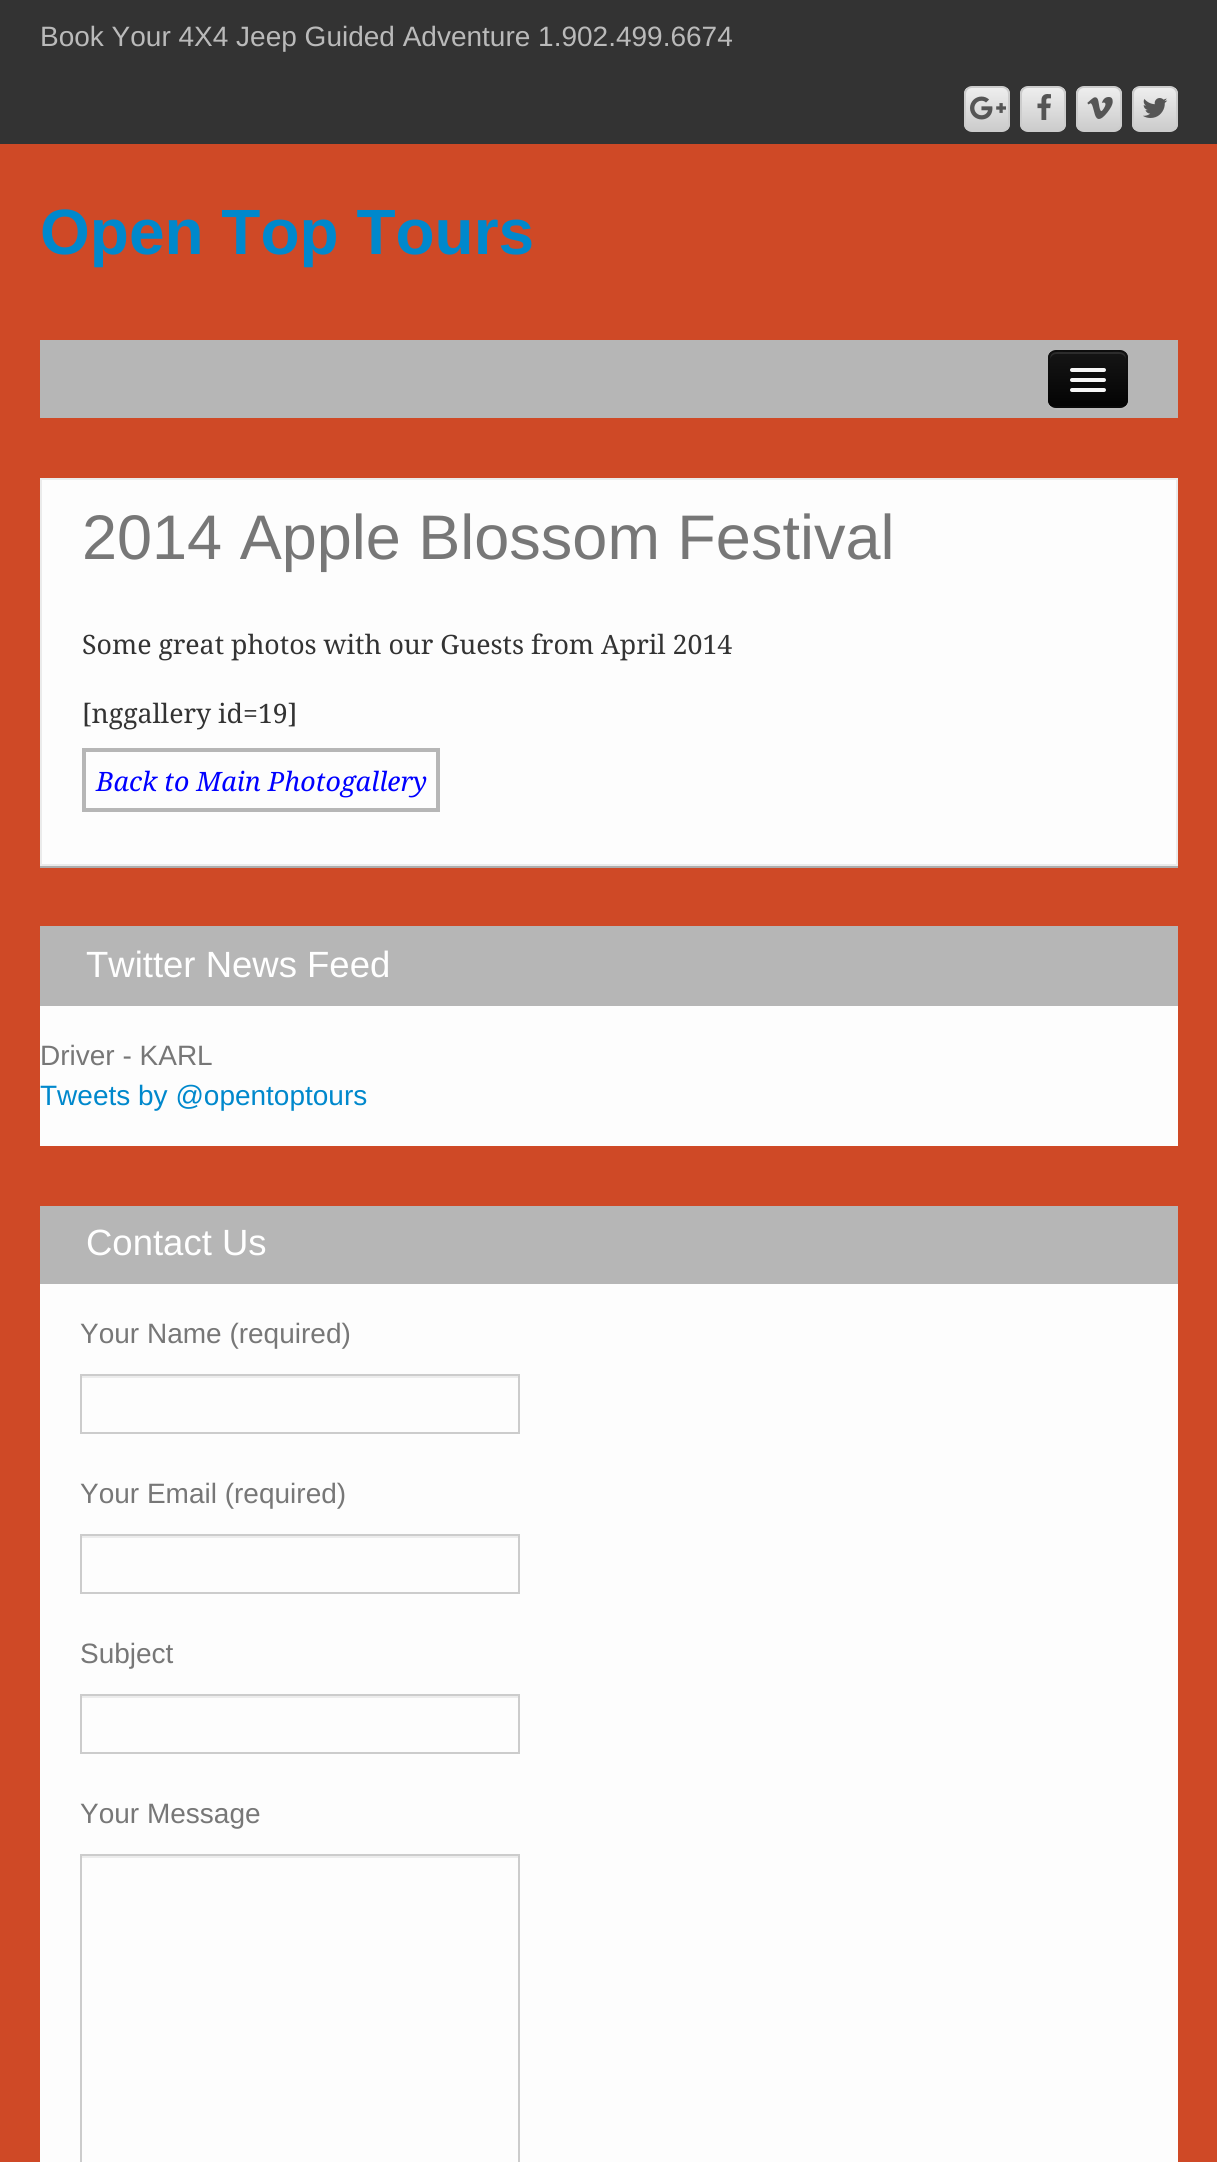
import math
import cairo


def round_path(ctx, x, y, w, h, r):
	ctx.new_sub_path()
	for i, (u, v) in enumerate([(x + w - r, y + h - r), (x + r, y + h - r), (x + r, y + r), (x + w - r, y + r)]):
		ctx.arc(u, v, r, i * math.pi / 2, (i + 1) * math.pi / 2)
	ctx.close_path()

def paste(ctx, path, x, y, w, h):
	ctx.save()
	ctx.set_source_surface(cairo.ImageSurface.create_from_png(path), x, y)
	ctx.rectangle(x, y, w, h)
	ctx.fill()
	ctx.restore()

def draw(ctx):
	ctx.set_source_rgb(0.812, 0.286, 0.149)
	ctx.paint()
	ctx.set_source_rgb(0.2, 0.2, 0.2)
	ctx.rectangle(0, 0, 1217, 144)
	ctx.fill()
	ctx.select_font_face('Liberation Sans')
	ctx.set_font_size(28)
	ctx.set_source_rgb(0.729, 0.729, 0.729)
	ctx.move_to(40, 46)
	ctx.show_text('Book Your 4X4 Jeep Guided Adventure 1.902.499.6674')
	ctx.save()
	round_path(ctx, 964, 86, 46, 46, 8)
	ctx.clip()
	gradient = cairo.LinearGradient(987, 88, 987, 130)
	gradient.add_color_stop_rgba(0, 0.933, 0.933, 0.933, 1)
	gradient.add_color_stop_rgba(1, 0.8, 0.8, 0.8, 1)
	ctx.set_source(gradient)
	ctx.rectangle(964, 88, 46, 42)
	ctx.fill()
	ctx.restore()
	round_path(ctx, 965, 87, 44, 44, 7)
	ctx.set_source_rgb(0.8, 0.8, 0.8)
	ctx.stroke()
	paste(ctx, 'media/1.png', 970, 96, 36, 24)
	ctx.save()
	round_path(ctx, 1020, 86, 46, 46, 8)
	ctx.clip()
	gradient = cairo.LinearGradient(1043, 88, 1043, 130)
	gradient.add_color_stop_rgba(0, 0.933, 0.933, 0.933, 1)
	gradient.add_color_stop_rgba(1, 0.8, 0.8, 0.8, 1)
	ctx.set_source(gradient)
	ctx.rectangle(1020, 88, 46, 42)
	ctx.fill()
	ctx.restore()
	round_path(ctx, 1021, 87, 44, 44, 7)
	ctx.stroke()
	paste(ctx, 'media/2.png', 1037, 94, 14, 26)
	ctx.save()
	round_path(ctx, 1076, 86, 46, 46, 8)
	ctx.clip()
	gradient = cairo.LinearGradient(1099, 88, 1099, 130)
	gradient.add_color_stop_rgba(0, 0.933, 0.933, 0.933, 1)
	gradient.add_color_stop_rgba(1, 0.8, 0.8, 0.8, 1)
	ctx.set_source(gradient)
	ctx.rectangle(1076, 88, 46, 42)
	ctx.fill()
	ctx.restore()
	round_path(ctx, 1077, 87, 44, 44, 7)
	ctx.stroke()
	paste(ctx, 'media/3.png', 1087, 97, 26, 22)
	ctx.save()
	round_path(ctx, 1132, 86, 46, 46, 8)
	ctx.clip()
	gradient = cairo.LinearGradient(1155, 88, 1155, 130)
	gradient.add_color_stop_rgba(0, 0.933, 0.933, 0.933, 1)
	gradient.add_color_stop_rgba(1, 0.8, 0.8, 0.8, 1)
	ctx.set_source(gradient)
	ctx.rectangle(1132, 88, 46, 42)
	ctx.fill()
	ctx.restore()
	round_path(ctx, 1133, 87, 44, 44, 7)
	ctx.stroke()
	paste(ctx, 'media/4.png', 1143, 98, 25, 20)
	ctx.select_font_face('Liberation Sans', cairo.FONT_SLANT_NORMAL, cairo.FONT_WEIGHT_BOLD)
	ctx.set_font_size(64)
	ctx.set_source_rgb(0, 0.533, 0.8)
	ctx.move_to(40, 254)
	ctx.show_text('Open Top Tours')
	ctx.set_source_rgb(0.714, 0.714, 0.714)
	ctx.rectangle(40, 340, 1138, 78)
	ctx.fill()
	ctx.set_source_rgb(0.733, 0.733, 0.733)
	ctx.new_path()
	ctx.move_to(1048, 400)
	ctx.curve_to(1048, 412, 1057, 410, 1067, 410)
	ctx.line_to(1109, 410)
	ctx.curve_to(1119, 410, 1128, 412, 1128, 400)
	ctx.curve_to(1128, 404, 1124, 408, 1120, 408)
	ctx.line_to(1056, 408)
	ctx.curve_to(1052, 408, 1048, 404, 1048, 400)
	ctx.close_path()
	ctx.fill()
	ctx.set_source_rgb(0.055, 0.055, 0.055)
	round_path(ctx, 1048, 350, 80, 58, 8)
	ctx.fill()
	ctx.save()
	round_path(ctx, 1048, 350, 80, 58, 8)
	ctx.clip()
	gradient = cairo.LinearGradient(1088, 352, 1088, 406)
	gradient.add_color_stop_rgba(0, 0.082, 0.082, 0.082, 1)
	gradient.add_color_stop_rgba(1, 0.016, 0.016, 0.016, 1)
	ctx.set_source(gradient)
	ctx.rectangle(1048, 352, 80, 54)
	ctx.fill()
	ctx.restore()
	ctx.set_source_rgb(0.173, 0.173, 0.173)
	ctx.new_path()
	ctx.move_to(1056, 354)
	ctx.line_to(1120, 354)
	ctx.curve_to(1123, 354, 1126, 357, 1126, 360)
	ctx.curve_to(1126, 350, 1118, 352, 1109, 352)
	ctx.line_to(1067, 352)
	ctx.curve_to(1058, 352, 1050, 350, 1050, 360)
	ctx.curve_to(1050, 357, 1053, 354, 1056, 354)
	ctx.close_path()
	ctx.fill()
	ctx.new_path()
	ctx.move_to(1125, 405)
	ctx.curve_to(1123.5, 406.5, 1122, 407, 1120, 407)
	ctx.line_to(1056, 407)
	ctx.curve_to(1054, 407, 1052.5, 406.5, 1051, 405)
	ctx.set_source_rgba(0, 0, 0, 0.25)
	ctx.stroke()
	ctx.new_path()
	ctx.move_to(1051, 405)
	ctx.curve_to(1049.5, 403.5, 1049, 402, 1049, 400)
	ctx.line_to(1049, 358)
	ctx.curve_to(1049, 356, 1049.5, 354.5, 1051, 353)
	ctx.curve_to(1052.5, 351.5, 1054, 351, 1056, 351)
	ctx.line_to(1120, 351)
	ctx.curve_to(1122, 351, 1123.5, 351.5, 1125, 353)
	ctx.curve_to(1126.5, 354.5, 1127, 356, 1127, 358)
	ctx.line_to(1127, 400)
	ctx.curve_to(1127, 402, 1126.5, 403.5, 1125, 405)
	ctx.set_source_rgba(0, 0, 0, 0.1)
	ctx.stroke()
	ctx.set_source_rgb(0.043, 0.043, 0.043)
	ctx.new_path()
	ctx.move_to(1070.5, 371)
	ctx.curve_to(1068, 375, 1077, 374, 1077.5, 374)
	ctx.line_to(1098.5, 374)
	ctx.curve_to(1099, 374, 1108, 375, 1105.5, 371)
	ctx.curve_to(1105.5, 371.5, 1104.5, 372, 1104, 372)
	ctx.line_to(1072, 372)
	ctx.curve_to(1071.5, 372, 1070.5, 371.5, 1070.5, 371)
	ctx.close_path()
	ctx.fill()
	ctx.set_source_rgb(0.961, 0.961, 0.961)
	round_path(ctx, 1070, 368, 36, 4, 2)
	ctx.fill()
	ctx.set_source_rgb(0.031, 0.031, 0.031)
	ctx.new_path()
	ctx.move_to(1070.5, 381)
	ctx.curve_to(1068, 385, 1077, 384, 1077.5, 384)
	ctx.line_to(1098.5, 384)
	ctx.curve_to(1099, 384, 1108, 385, 1105.5, 381)
	ctx.curve_to(1105.5, 381.5, 1104.5, 382, 1104, 382)
	ctx.line_to(1072, 382)
	ctx.curve_to(1071.5, 382, 1070.5, 381.5, 1070.5, 381)
	ctx.close_path()
	ctx.fill()
	ctx.set_source_rgb(0.961, 0.961, 0.961)
	round_path(ctx, 1070, 378, 36, 4, 2)
	ctx.fill()
	round_path(ctx, 1070, 388, 36, 4, 2)
	ctx.fill()
	ctx.set_source_rgb(0.678, 0.678, 0.678)
	ctx.rectangle(40, 866, 1138, 2)
	ctx.fill()
	ctx.set_source_rgb(0.992, 0.992, 0.992)
	ctx.rectangle(41, 479, 1136, 386)
	ctx.fill_preserve()
	ctx.set_source_rgb(0.918, 0.918, 0.918)
	ctx.stroke()
	ctx.select_font_face('Liberation Sans')
	ctx.set_font_size(63)
	ctx.set_source_rgb(0.467, 0.467, 0.467)
	ctx.move_to(82, 559)
	ctx.show_text('2014 Apple Blossom Festival')
	ctx.select_font_face('Noto Serif')
	ctx.set_font_size(26.7)
	ctx.set_source_rgb(0.2, 0.2, 0.2)
	ctx.move_to(82, 654)
	ctx.show_text('Some great photos with our Guests from April 2014')
	ctx.move_to(82, 723)
	ctx.show_text('[nggallery id=19]')
	ctx.rectangle(84, 750, 354, 60)
	ctx.set_source_rgb(0.714, 0.714, 0.714)
	ctx.set_line_width(4)
	ctx.stroke()
	ctx.select_font_face('Noto Serif', cairo.FONT_SLANT_ITALIC)
	ctx.set_source_rgb(0, 0, 1)
	ctx.move_to(96, 791)
	ctx.show_text('Back to Main Photogallery')
	ctx.set_source_rgb(0.992, 0.992, 0.992)
	ctx.rectangle(40, 1006, 1138, 140)
	ctx.fill()
	ctx.set_source_rgb(0.714, 0.714, 0.714)
	ctx.rectangle(40, 926, 1138, 80)
	ctx.fill()
	ctx.select_font_face('Liberation Sans')
	ctx.set_font_size(36.5)
	ctx.set_source_rgb(1, 1, 1)
	ctx.move_to(86, 977)
	ctx.show_text('Twitter News Feed')
	ctx.set_font_size(28)
	ctx.set_source_rgb(0.467, 0.467, 0.467)
	ctx.move_to(40, 1065)
	ctx.show_text('Driver - KARL')
	ctx.set_source_rgb(0, 0.533, 0.8)
	ctx.move_to(40, 1105)
	ctx.show_text('Tweets by @opentoptours')
	ctx.set_source_rgb(0.992, 0.992, 0.992)
	ctx.rectangle(40, 1284, 1138, 878)
	ctx.fill()
	ctx.set_source_rgb(0.714, 0.714, 0.714)
	ctx.rectangle(40, 1206, 1138, 78)
	ctx.fill()
	ctx.set_font_size(36.5)
	ctx.set_source_rgb(1, 1, 1)
	ctx.move_to(86, 1255)
	ctx.show_text('Contact Us')
	ctx.set_font_size(28)
	ctx.set_source_rgb(0.467, 0.467, 0.467)
	ctx.move_to(80, 1343)
	ctx.show_text('Your Name (required)')
	ctx.set_source_rgb(0.925, 0.925, 0.925)
	ctx.rectangle(82, 1376, 436, 2)
	ctx.fill()
	ctx.rectangle(81, 1375, 438, 58)
	ctx.set_source_rgb(0.8, 0.8, 0.8)
	ctx.set_line_width(2)
	ctx.stroke()
	ctx.set_source_rgb(0.467, 0.467, 0.467)
	ctx.move_to(80, 1503)
	ctx.show_text('Your Email (required)')
	ctx.set_source_rgb(0.925, 0.925, 0.925)
	ctx.rectangle(82, 1536, 436, 2)
	ctx.fill()
	ctx.rectangle(81, 1535, 438, 58)
	ctx.set_source_rgb(0.8, 0.8, 0.8)
	ctx.stroke()
	ctx.set_source_rgb(0.467, 0.467, 0.467)
	ctx.move_to(80, 1663)
	ctx.show_text('Subject')
	ctx.set_source_rgb(0.925, 0.925, 0.925)
	ctx.rectangle(82, 1696, 436, 2)
	ctx.fill()
	ctx.rectangle(81, 1695, 438, 58)
	ctx.set_source_rgb(0.8, 0.8, 0.8)
	ctx.stroke()
	ctx.set_source_rgb(0.467, 0.467, 0.467)
	ctx.move_to(80, 1823)
	ctx.show_text('Your Message')
	ctx.set_source_rgb(0.925, 0.925, 0.925)
	ctx.rectangle(82, 1856, 436, 2)
	ctx.fill()
	ctx.rectangle(81, 1855, 438, 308)
	ctx.set_source_rgb(0.8, 0.8, 0.8)
	ctx.stroke()


surface = cairo.ImageSurface(cairo.FORMAT_RGB24, 1217, 2162)
ctx = cairo.Context(surface)
options = cairo.FontOptions()
options.set_hint_metrics(cairo.HINT_METRICS_OFF)
options.set_hint_style(cairo.HINT_STYLE_NONE)
ctx.set_font_options(options)
ctx.set_miter_limit(4)
draw(ctx)
surface.write_to_png('image.png')
